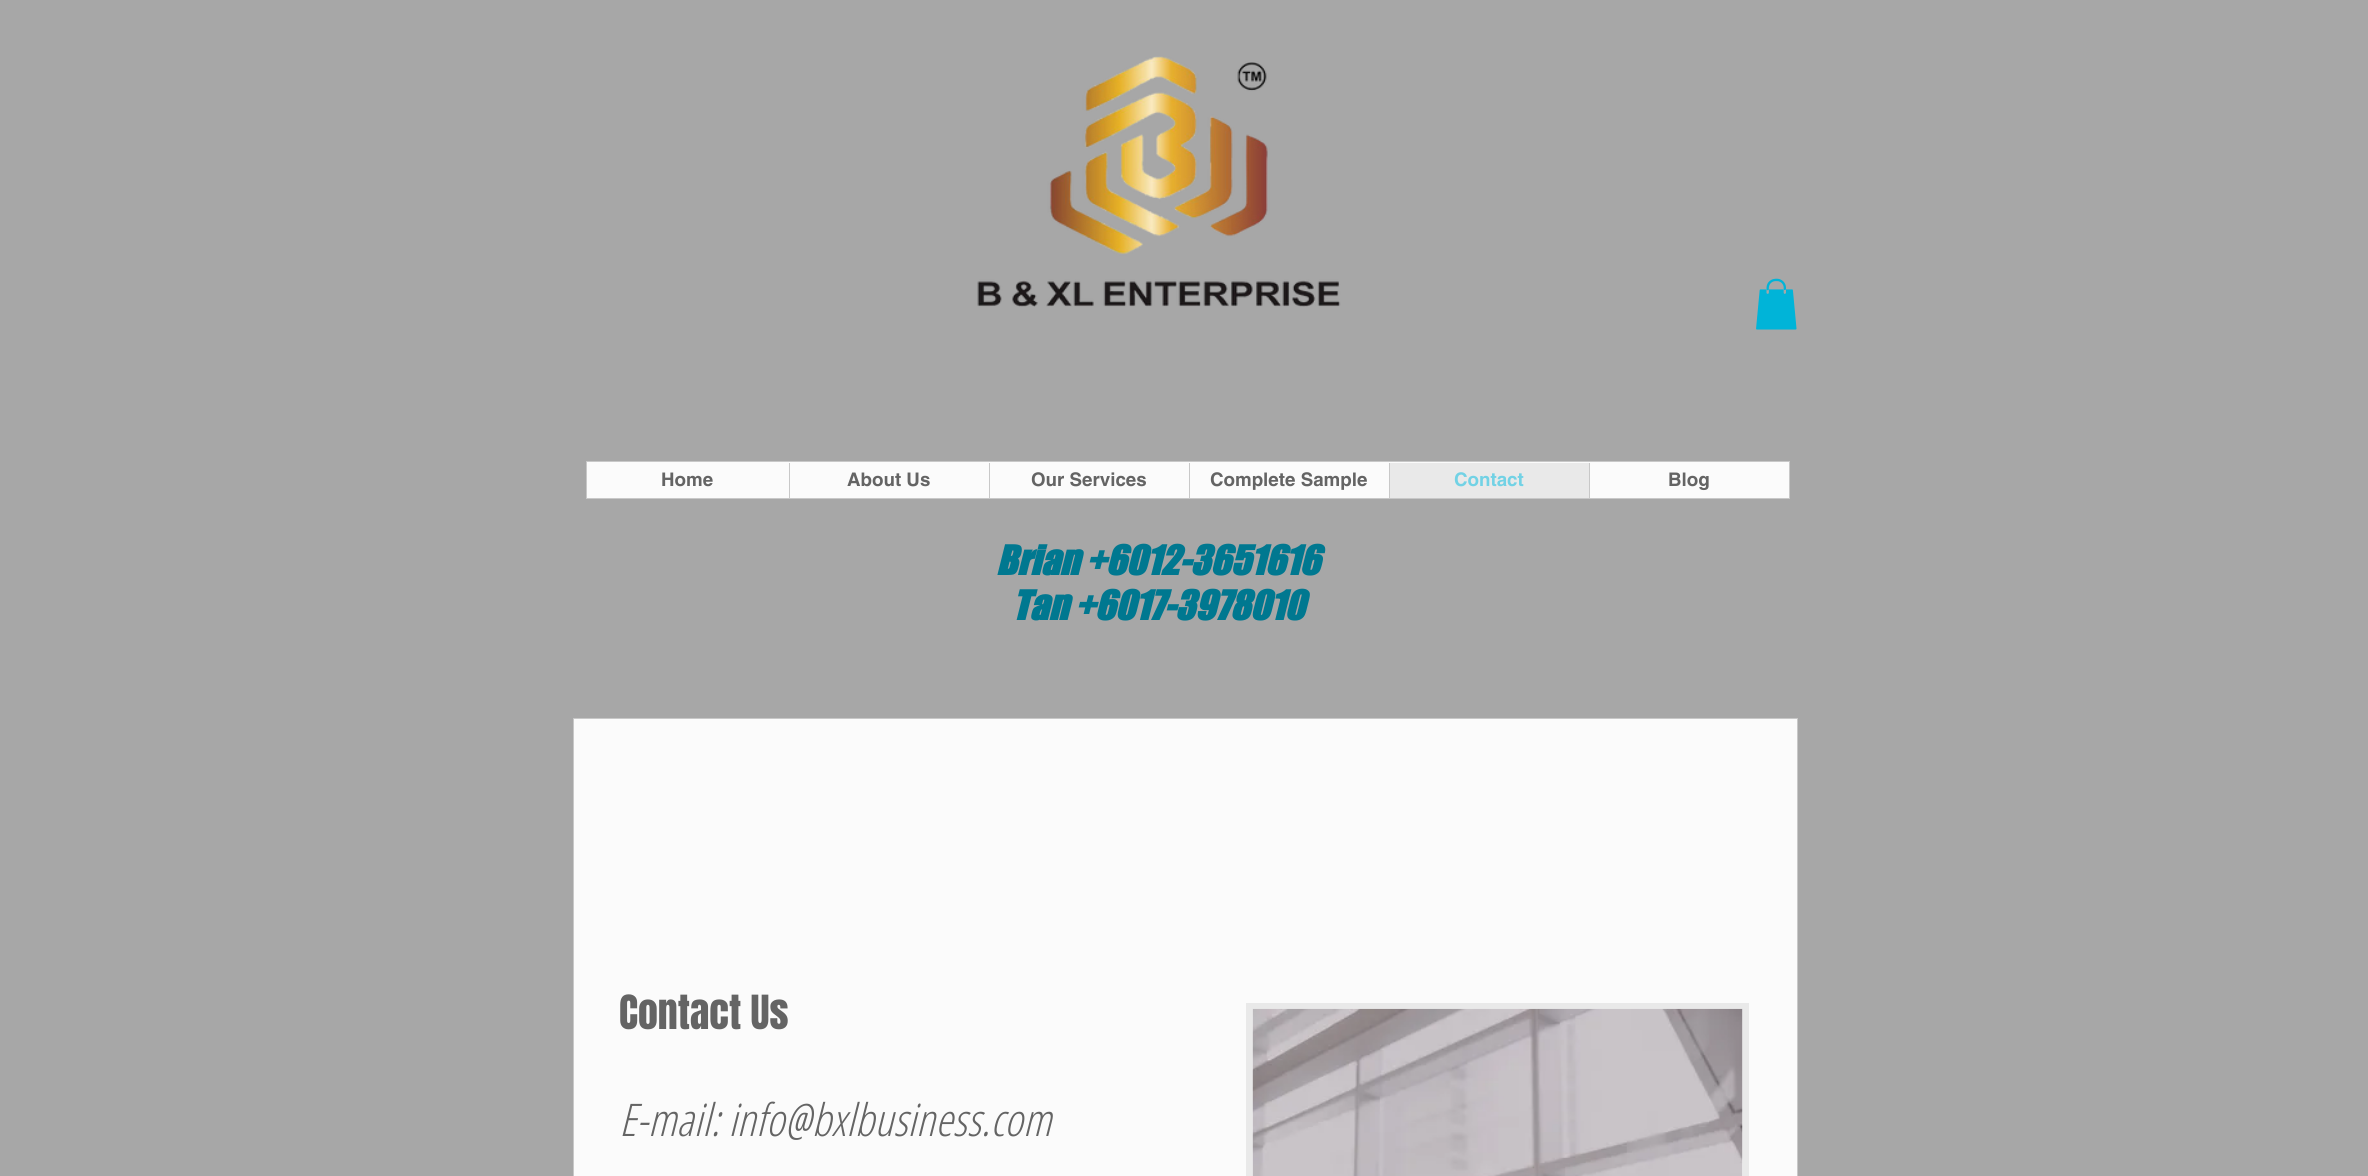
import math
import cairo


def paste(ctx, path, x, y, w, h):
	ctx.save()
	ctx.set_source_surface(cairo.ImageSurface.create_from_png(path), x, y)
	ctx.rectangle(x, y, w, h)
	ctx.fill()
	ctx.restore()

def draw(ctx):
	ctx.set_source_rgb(0.655, 0.655, 0.655)
	ctx.paint()
	paste(ctx, 'media/1.png', 977, 56, 364, 251)
	paste(ctx, 'media/2.png', 1756, 278, 41, 52)
	ctx.set_source_rgb(0.984, 0.984, 0.984)
	ctx.rectangle(586.5, 461.5, 1203, 37)
	ctx.fill_preserve()
	ctx.set_source_rgb(0.784, 0.784, 0.784)
	ctx.set_line_width(1)
	ctx.stroke()
	ctx.select_font_face('helvetica', cairo.FONT_SLANT_NORMAL, cairo.FONT_WEIGHT_BOLD)
	ctx.set_font_size(18.75)
	ctx.set_source_rgb(0.392, 0.392, 0.392)
	ctx.move_to(661, 486)
	ctx.show_text('Home')
	ctx.set_source_rgb(0.784, 0.784, 0.784)
	ctx.rectangle(789, 463, 1, 35)
	ctx.fill()
	ctx.set_source_rgb(0.392, 0.392, 0.392)
	ctx.move_to(847, 486)
	ctx.show_text('About Us')
	ctx.set_source_rgb(0.784, 0.784, 0.784)
	ctx.rectangle(989, 463, 1, 35)
	ctx.fill()
	ctx.set_source_rgb(0.392, 0.392, 0.392)
	ctx.move_to(1031, 486)
	ctx.show_text('Our Services')
	ctx.set_source_rgb(0.784, 0.784, 0.784)
	ctx.rectangle(1189, 463, 1, 35)
	ctx.fill()
	ctx.set_source_rgb(0.392, 0.392, 0.392)
	ctx.move_to(1210, 486)
	ctx.show_text('Complete Sample')
	ctx.set_source_rgb(0.914, 0.914, 0.914)
	ctx.rectangle(1390, 463, 199, 35)
	ctx.fill()
	ctx.set_source_rgb(0.784, 0.784, 0.784)
	ctx.rectangle(1389, 463, 1, 35)
	ctx.fill()
	ctx.set_source_rgb(0.447, 0.824, 0.898)
	ctx.move_to(1454, 486)
	ctx.show_text('Contact')
	ctx.set_source_rgb(0.784, 0.784, 0.784)
	ctx.rectangle(1589, 463, 1, 35)
	ctx.fill()
	ctx.set_source_rgb(0.392, 0.392, 0.392)
	ctx.move_to(1668, 486)
	ctx.show_text('Blog')
	ctx.select_font_face('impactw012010', cairo.FONT_SLANT_ITALIC, cairo.FONT_WEIGHT_BOLD)
	ctx.set_font_size(37.5)
	ctx.set_source_rgb(0, 0.471, 0.565)
	ctx.move_to(996, 575)
	ctx.show_text('Brian +6012-3651616')
	ctx.move_to(1012, 620)
	ctx.show_text('Tan +6017-3978010')
	ctx.set_source_rgb(0.984, 0.984, 0.984)
	ctx.rectangle(573.5, 718.5, 1224, 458)
	ctx.fill_preserve()
	ctx.set_source_rgb(0.784, 0.784, 0.784)
	ctx.stroke()
	ctx.select_font_face('Anton')
	ctx.set_font_size(40)
	ctx.set_source_rgb(0.392, 0.392, 0.392)
	ctx.move_to(619, 1029)
	ctx.show_text('Contact Us')
	ctx.set_source_rgb(0.945, 0.945, 0.945)
	ctx.rectangle(1249, 1006, 497, 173)
	ctx.fill_preserve()
	ctx.set_source_rgb(0.914, 0.914, 0.914)
	ctx.set_line_width(6)
	ctx.stroke()
	paste(ctx, 'media/3.png', 1252, 1008, 491, 168)
	ctx.select_font_face('Open Sans Condensed Light', cairo.FONT_SLANT_ITALIC)
	ctx.set_font_size(45)
	ctx.set_source_rgb(0.392, 0.392, 0.392)
	ctx.move_to(619, 1136)
	ctx.show_text('E-mail: info@bxlbusiness.com')


surface = cairo.ImageSurface(cairo.FORMAT_RGB24, 2368, 1176)
ctx = cairo.Context(surface)
options = cairo.FontOptions()
options.set_hint_metrics(cairo.HINT_METRICS_OFF)
options.set_hint_style(cairo.HINT_STYLE_NONE)
ctx.set_font_options(options)
ctx.set_miter_limit(4)
draw(ctx)
surface.write_to_png('image.png')
